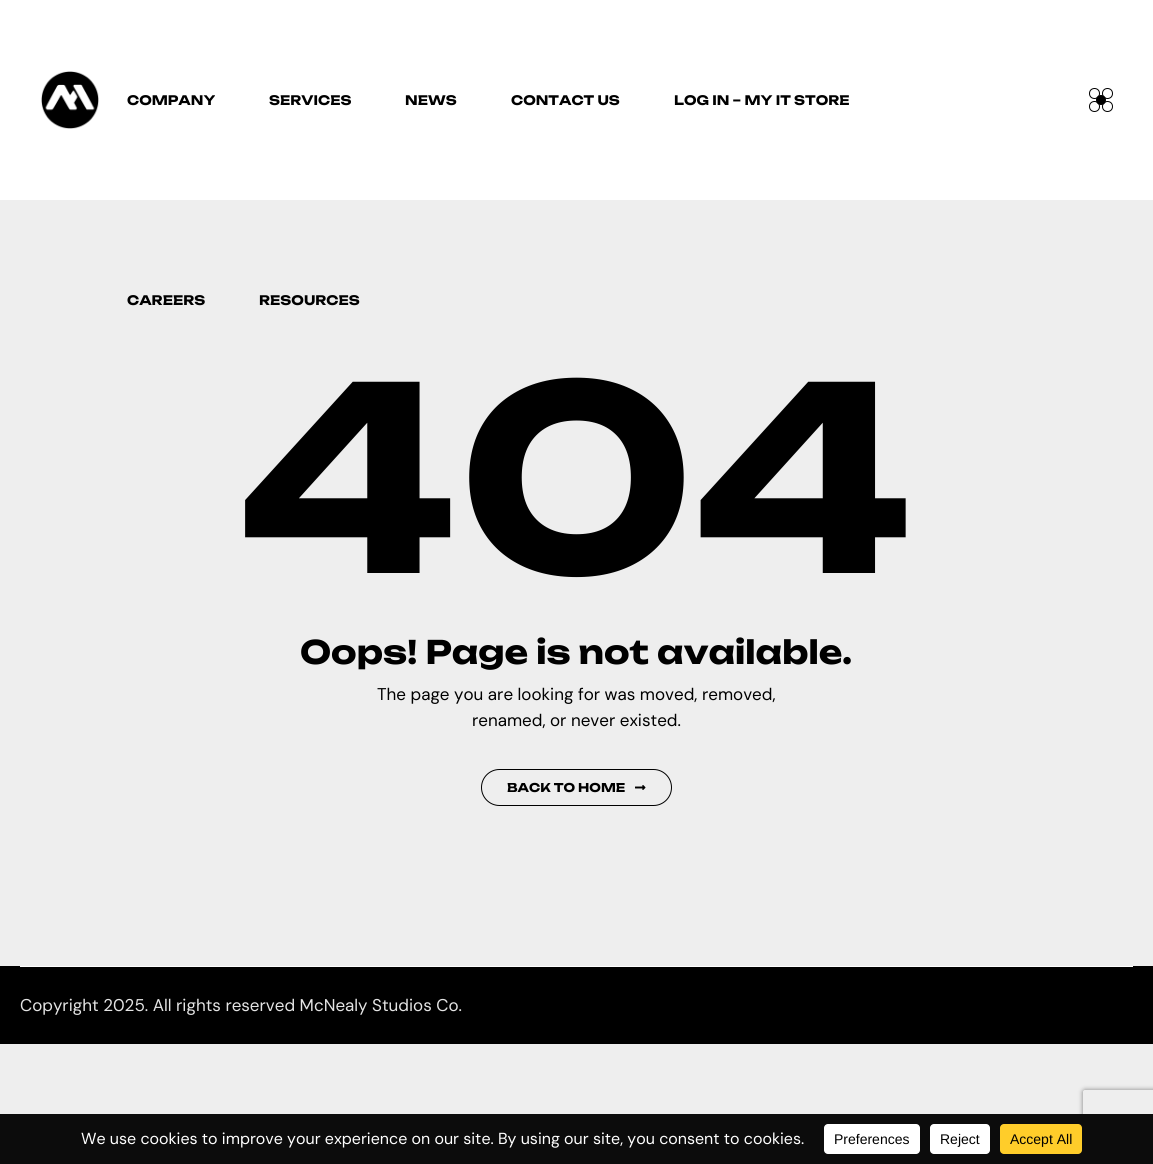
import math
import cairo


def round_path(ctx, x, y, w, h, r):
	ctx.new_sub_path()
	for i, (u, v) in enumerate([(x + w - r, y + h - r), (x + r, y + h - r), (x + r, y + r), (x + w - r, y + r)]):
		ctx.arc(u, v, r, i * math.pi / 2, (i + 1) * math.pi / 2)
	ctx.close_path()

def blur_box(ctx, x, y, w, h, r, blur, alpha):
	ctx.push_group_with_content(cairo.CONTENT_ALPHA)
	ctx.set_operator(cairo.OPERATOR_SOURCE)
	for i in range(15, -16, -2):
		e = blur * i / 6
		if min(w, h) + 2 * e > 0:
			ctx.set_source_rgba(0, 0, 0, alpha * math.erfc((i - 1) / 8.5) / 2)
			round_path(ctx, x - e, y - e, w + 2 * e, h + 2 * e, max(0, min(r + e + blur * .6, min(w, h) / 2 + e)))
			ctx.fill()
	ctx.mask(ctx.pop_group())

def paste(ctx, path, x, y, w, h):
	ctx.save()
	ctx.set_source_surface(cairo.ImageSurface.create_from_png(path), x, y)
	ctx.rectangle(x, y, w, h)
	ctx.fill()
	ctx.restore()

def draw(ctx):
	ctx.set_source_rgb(0.933, 0.933, 0.933)
	ctx.paint()
	ctx.set_source_rgb(1, 1, 1)
	ctx.rectangle(0, 0, 1153, 200)
	ctx.fill()
	paste(ctx, 'media/1.png', 41, 71, 58, 58)
	ctx.select_font_face('Unbounded', cairo.FONT_SLANT_NORMAL, cairo.FONT_WEIGHT_BOLD)
	ctx.set_font_size(13)
	ctx.set_source_rgb(0, 0, 0)
	for x, y, s in [
		(127, 105, 'COMPANY'),
		(269, 105, 'SERVICES'),
		(405, 105, 'NEWS'),
		(511, 105, 'CONTACT US'),
		(674, 105, 'LOG IN – MY IT STORE'),
		(127, 305, 'CAREERS'),
		(259, 305, 'RESOURCES'),
	]:
		ctx.move_to(x, y)
		ctx.show_text(s)
	ctx.new_path()
	ctx.arc(1094.5, 93.5, 5, 0, 2 * math.pi)
	ctx.set_line_width(1)
	ctx.stroke()
	ctx.arc(1107.5, 93.5, 5, 0, 2 * math.pi)
	ctx.stroke()
	ctx.arc(1094.5, 106.5, 5, 0, 2 * math.pi)
	ctx.stroke()
	ctx.arc(1107.5, 106.5, 5, 0, 2 * math.pi)
	ctx.stroke()
	ctx.arc(1101, 100, 5, 0, 2 * math.pi)
	ctx.fill()
	ctx.set_font_size(255)
	ctx.move_to(239, 573)
	ctx.show_text('404')
	ctx.set_font_size(32.25)
	ctx.move_to(300, 664)
	ctx.show_text('Oops! Page is not available.')
	ctx.select_font_face('DM Sans')
	ctx.set_font_size(17)
	ctx.move_to(377, 700)
	ctx.show_text('The page you are looking for was moved, removed,')
	ctx.move_to(472, 726)
	ctx.show_text('renamed, or never existed.')
	round_path(ctx, 481.5, 769.5, 190, 36, 18)
	ctx.stroke()
	ctx.select_font_face('Unbounded', cairo.FONT_SLANT_NORMAL, cairo.FONT_WEIGHT_BOLD)
	ctx.set_font_size(12)
	ctx.move_to(507, 792)
	ctx.show_text('BACK TO HOME')
	paste(ctx, 'media/2.png', 635, 785, 11, 5)
	ctx.rectangle(0, 966, 1153, 78)
	ctx.fill()
	ctx.set_source_rgb(1, 1, 1)
	ctx.rectangle(20, 966, 1113, 1)
	ctx.fill()
	ctx.select_font_face('DM Sans')
	ctx.set_font_size(17)
	ctx.set_source_rgb(0.894, 0.894, 0.894)
	ctx.move_to(20, 1011)
	ctx.show_text('Copyright 2025. All rights reserved McNealy Studios Co.')
	ctx.save()
	ctx.set_fill_rule(cairo.FILL_RULE_EVEN_ODD)
	ctx.new_path()
	ctx.move_to(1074, 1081)
	ctx.line_to(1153, 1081)
	ctx.line_to(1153, 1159)
	ctx.line_to(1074, 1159)
	ctx.close_path()
	ctx.move_to(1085, 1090)
	ctx.line_to(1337, 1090)
	ctx.curve_to(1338, 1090, 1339, 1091, 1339, 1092)
	ctx.line_to(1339, 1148)
	ctx.curve_to(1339, 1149, 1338, 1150, 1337, 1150)
	ctx.line_to(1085, 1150)
	ctx.curve_to(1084, 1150, 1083, 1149, 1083, 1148)
	ctx.line_to(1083, 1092)
	ctx.curve_to(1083, 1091, 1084, 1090, 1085, 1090)
	ctx.close_path()
	ctx.clip()
	ctx.set_source_rgb(0.502, 0.502, 0.502)
	blur_box(ctx, 1083, 1090, 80, 60, 2, 2.5, 1)
	ctx.restore()
	ctx.set_source_rgb(0.047, 0.047, 0.047)
	ctx.rectangle(0, 1114, 1153, 50)
	ctx.fill()
	ctx.set_font_size(16)
	ctx.set_source_rgb(1, 1, 1)
	ctx.move_to(81, 1144)
	ctx.show_text('We use cookies to improve your experience on our site. By using our site, you consent to cookies.')
	round_path(ctx, 824, 1124, 96, 30, 4)
	ctx.fill()
	ctx.select_font_face('Liberation Sans')
	ctx.set_font_size(14)
	ctx.set_source_rgb(0, 0, 0)
	ctx.move_to(834, 1144)
	ctx.show_text('Preferences')
	ctx.set_source_rgb(1, 1, 1)
	round_path(ctx, 930, 1124, 60, 30, 4)
	ctx.fill()
	ctx.set_source_rgb(0, 0, 0)
	ctx.move_to(940, 1144)
	ctx.show_text('Reject')
	ctx.set_source_rgb(1, 0.804, 0.165)
	round_path(ctx, 1000, 1124, 82, 30, 4)
	ctx.fill()
	ctx.set_source_rgb(0, 0, 0)
	ctx.move_to(1010, 1144)
	ctx.show_text('Accept All')


surface = cairo.ImageSurface(cairo.FORMAT_RGB24, 1153, 1164)
ctx = cairo.Context(surface)
options = cairo.FontOptions()
options.set_hint_metrics(cairo.HINT_METRICS_OFF)
options.set_hint_style(cairo.HINT_STYLE_NONE)
ctx.set_font_options(options)
ctx.set_miter_limit(4)
draw(ctx)
surface.write_to_png('image.png')
